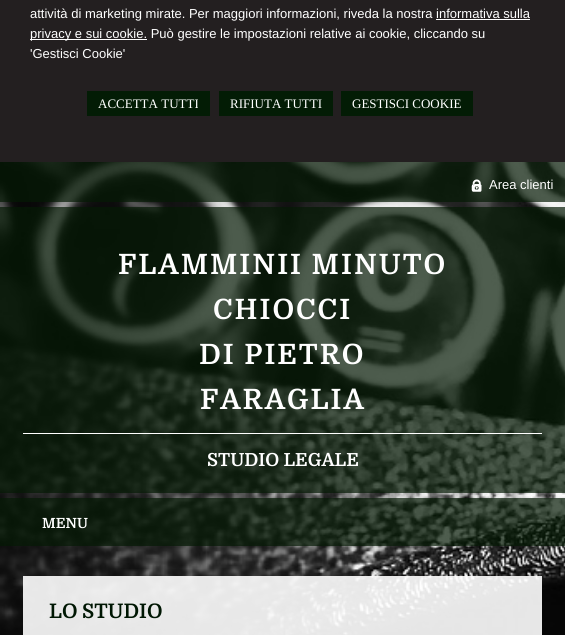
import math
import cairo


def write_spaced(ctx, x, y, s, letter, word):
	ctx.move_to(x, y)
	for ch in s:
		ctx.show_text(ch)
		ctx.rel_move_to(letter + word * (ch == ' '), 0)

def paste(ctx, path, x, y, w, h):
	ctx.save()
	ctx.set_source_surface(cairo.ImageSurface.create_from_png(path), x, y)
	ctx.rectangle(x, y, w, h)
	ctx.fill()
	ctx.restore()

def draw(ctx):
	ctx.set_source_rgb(1, 1, 1)
	ctx.paint()
	paste(ctx, 'media/1.png', 0, 162, 565, 473)
	ctx.set_source_rgb(0.137, 0.122, 0.125)
	ctx.rectangle(0, 0, 565, 162)
	ctx.fill()
	ctx.select_font_face('Liberation Sans')
	ctx.set_font_size(13)
	ctx.set_source_rgb(1, 1, 1)
	ctx.move_to(30, 18)
	ctx.show_text('attività di marketing mirate. Per maggiori informazioni, riveda la nostra informativa sulla')
	ctx.rectangle(30, 39, 117, 1)
	ctx.fill()
	ctx.move_to(30, 38)
	ctx.show_text('privacy e sui cookie. Può gestire le impostazioni relative ai cookie, cliccando su')
	ctx.rectangle(436, 19, 94, 1)
	ctx.fill()
	ctx.move_to(30, 58)
	ctx.show_text('\'Gestisci Cookie\'')
	ctx.set_source_rgb(0.012, 0.11, 0.02)
	ctx.rectangle(87, 91, 123, 25)
	ctx.fill()
	ctx.select_font_face('Liberation Serif')
	ctx.set_source_rgb(1, 1, 1)
	ctx.move_to(98, 108)
	ctx.show_text('ACCETTA TUTTI')
	ctx.set_source_rgb(0.012, 0.11, 0.02)
	ctx.rectangle(219, 91, 114, 25)
	ctx.fill()
	ctx.set_source_rgb(1, 1, 1)
	ctx.move_to(230, 108)
	ctx.show_text('RIFIUTA TUTTI')
	ctx.set_source_rgb(0.012, 0.11, 0.02)
	ctx.rectangle(341, 91, 132, 25)
	ctx.fill()
	ctx.set_source_rgb(1, 1, 1)
	ctx.move_to(352, 108)
	ctx.show_text('GESTISCI COOKIE')
	ctx.set_source_rgba(0.02, 0.102, 0.02, 0.7)
	ctx.rectangle(0, 162, 565, 40)
	ctx.fill()
	paste(ctx, 'media/2.png', 471, 179, 11, 13)
	ctx.select_font_face('Liberation Sans')
	ctx.set_source_rgb(1, 1, 1)
	ctx.move_to(489, 189)
	ctx.show_text('Area clienti')
	ctx.set_source_rgba(0.02, 0.102, 0.02, 0.7)
	ctx.rectangle(0, 207, 565, 286)
	ctx.fill()
	ctx.select_font_face('Domine', cairo.FONT_SLANT_NORMAL, cairo.FONT_WEIGHT_BOLD)
	ctx.set_font_size(28)
	ctx.set_source_rgb(1, 1, 1)
	for x, y, s in [
		(118, 274, 'FLAMMINII MINUTO'),
		(213, 319, 'CHIOCCI'),
		(199, 364, 'DI PIETRO'),
		(200, 409, 'FARAGLIA'),
	]:
		write_spaced(ctx, x, y, s, 2, 0)
	ctx.rectangle(23, 433, 519, 1)
	ctx.fill()
	ctx.set_font_size(18)
	ctx.move_to(207, 466)
	ctx.show_text('STUDIO LEGALE')
	ctx.set_source_rgba(0.02, 0.102, 0.02, 0.7)
	ctx.rectangle(0, 498, 565, 48)
	ctx.fill()
	ctx.set_font_size(14)
	ctx.set_source_rgb(1, 1, 1)
	ctx.move_to(42, 528)
	ctx.show_text('MENU')
	ctx.set_source_rgba(1, 1, 1, 0.9)
	ctx.rectangle(23, 576, 519, 59)
	ctx.fill()
	ctx.set_font_size(20)
	ctx.set_source_rgb(0, 0.09, 0.012)
	ctx.move_to(49, 618)
	ctx.show_text('LO STUDIO')


surface = cairo.ImageSurface(cairo.FORMAT_RGB24, 565, 635)
ctx = cairo.Context(surface)
options = cairo.FontOptions()
options.set_hint_metrics(cairo.HINT_METRICS_OFF)
options.set_hint_style(cairo.HINT_STYLE_NONE)
ctx.set_font_options(options)
ctx.set_miter_limit(4)
draw(ctx)
surface.write_to_png('image.png')
